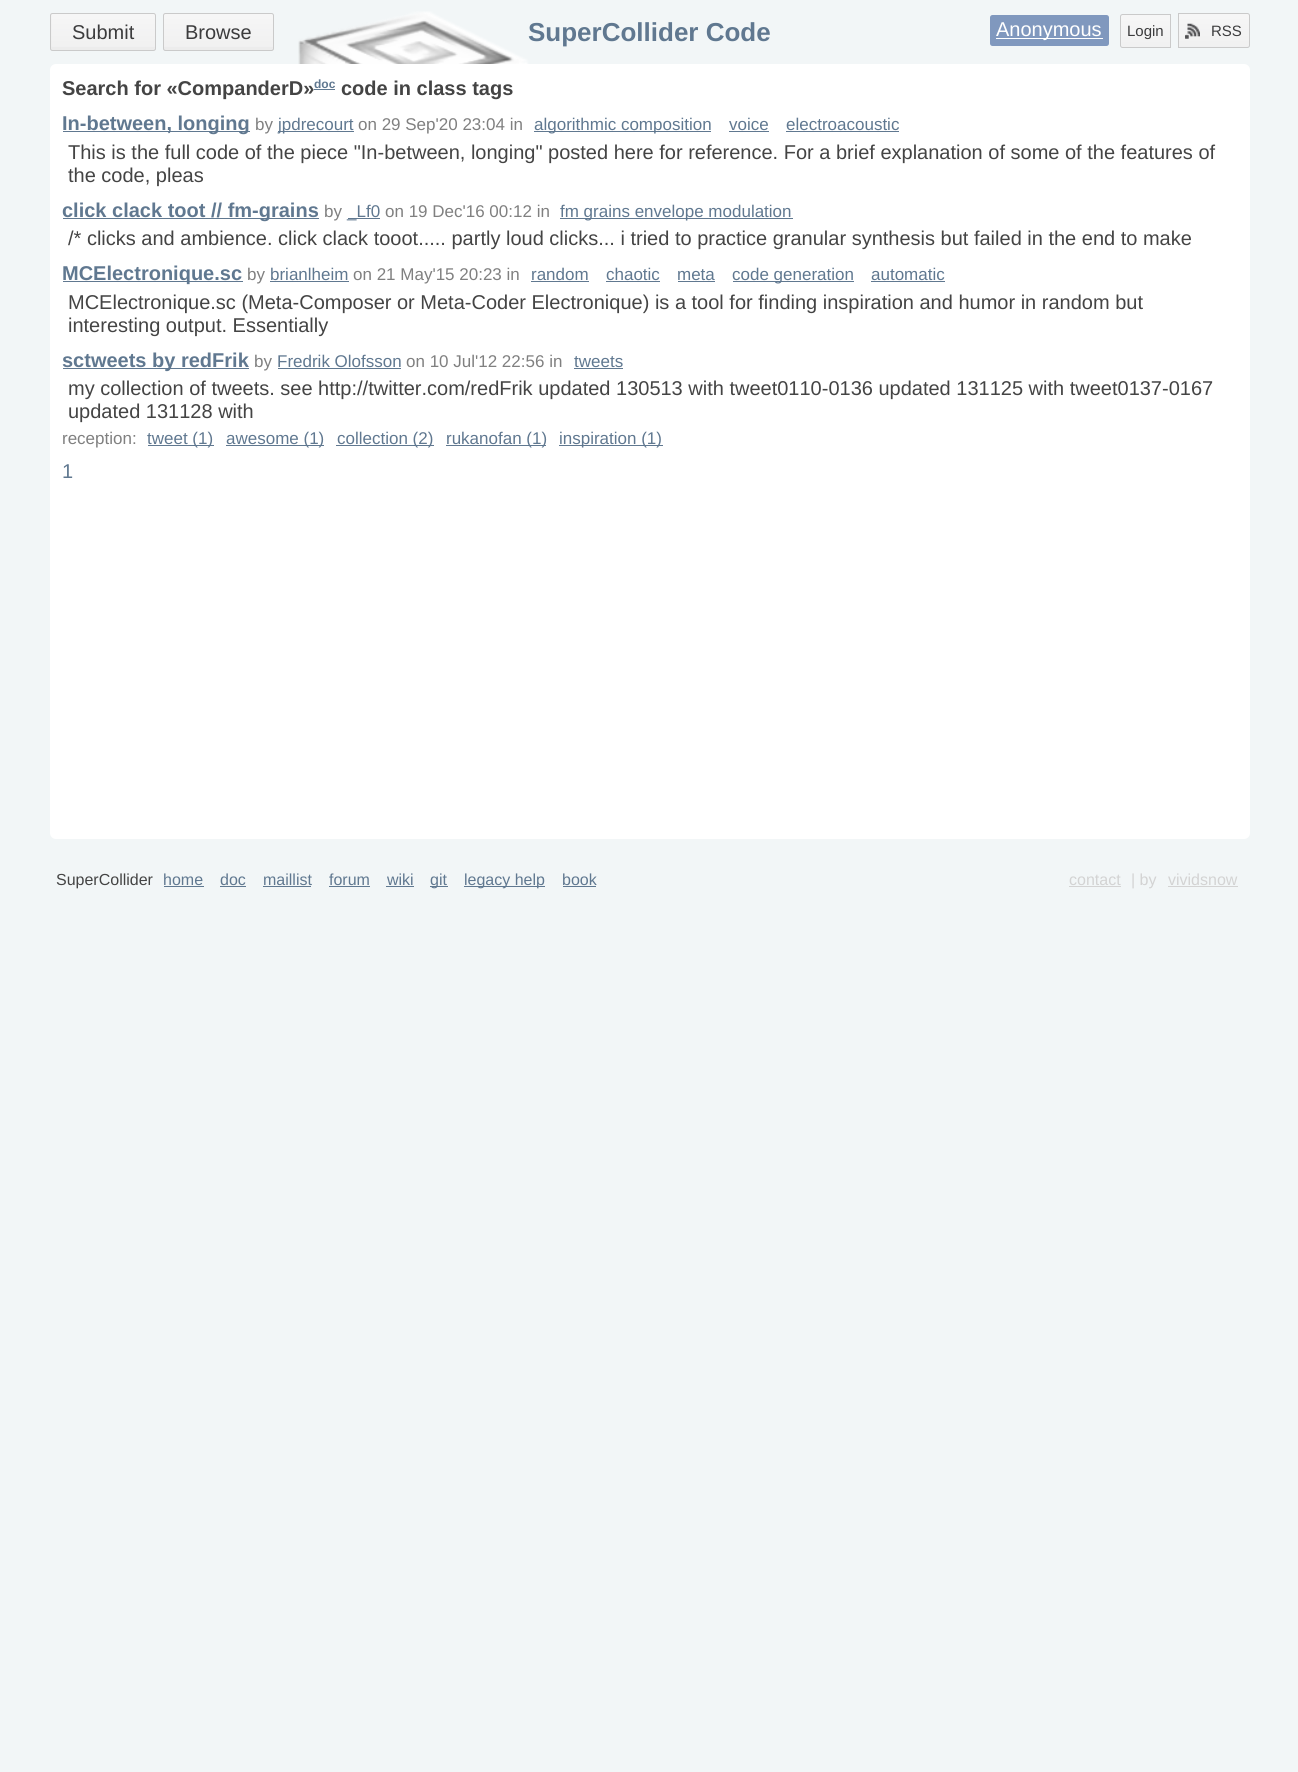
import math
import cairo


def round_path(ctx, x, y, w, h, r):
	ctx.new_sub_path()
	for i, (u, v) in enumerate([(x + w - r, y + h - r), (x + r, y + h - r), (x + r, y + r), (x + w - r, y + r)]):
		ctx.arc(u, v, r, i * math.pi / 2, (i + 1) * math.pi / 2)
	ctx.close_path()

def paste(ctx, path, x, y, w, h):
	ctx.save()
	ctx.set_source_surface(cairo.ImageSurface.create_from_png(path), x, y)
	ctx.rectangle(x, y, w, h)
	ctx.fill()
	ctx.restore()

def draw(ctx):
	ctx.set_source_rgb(0.949, 0.961, 0.965)
	ctx.paint()
	paste(ctx, 'media/1.png', 298, 11, 231, 53)
	ctx.set_source_rgb(0.925, 0.925, 0.925)
	round_path(ctx, 50, 13, 106, 38, 2.5)
	ctx.fill()
	paste(ctx, 'media/2.png', 51, 14, 105, 33)
	round_path(ctx, 50.5, 13.5, 105, 37, 2)
	ctx.set_source_rgb(0.792, 0.792, 0.792)
	ctx.set_line_width(1)
	ctx.stroke()
	ctx.select_font_face('Liberation Sans')
	ctx.set_font_size(20)
	ctx.set_source_rgb(0.235, 0.235, 0.239)
	ctx.move_to(72, 39)
	ctx.show_text('Submit')
	ctx.set_source_rgb(0.925, 0.925, 0.925)
	round_path(ctx, 163, 13, 111, 38, 2.5)
	ctx.fill()
	paste(ctx, 'media/3.png', 164, 14, 110, 33)
	round_path(ctx, 163.5, 13.5, 110, 37, 2)
	ctx.set_source_rgb(0.792, 0.792, 0.792)
	ctx.stroke()
	ctx.set_source_rgb(0.235, 0.235, 0.239)
	ctx.move_to(185, 39)
	ctx.show_text('Browse')
	ctx.select_font_face('Liberation Sans', cairo.FONT_SLANT_NORMAL, cairo.FONT_WEIGHT_BOLD)
	ctx.set_font_size(26)
	ctx.set_source_rgb(0.376, 0.471, 0.565)
	ctx.move_to(528, 41)
	ctx.show_text('SuperCollider Code')
	ctx.set_source_rgb(0.502, 0.596, 0.745)
	round_path(ctx, 990, 15, 119, 31, 2.5)
	ctx.fill()
	ctx.set_source_rgb(1, 1, 1)
	ctx.rectangle(996, 38, 107, 1)
	ctx.fill()
	ctx.select_font_face('Liberation Sans')
	ctx.set_font_size(20)
	ctx.move_to(996, 36)
	ctx.show_text('Anonymous')
	paste(ctx, 'media/4.png', 1121, 15, 49, 32)
	ctx.new_path()
	ctx.move_to(1122.5, 14.5)
	ctx.line_to(1170.5, 14.5)
	ctx.line_to(1170.5, 47.5)
	ctx.line_to(1122.5, 47.5)
	ctx.curve_to(1121.5, 47.5, 1120.5, 46.5, 1120.5, 45.5)
	ctx.line_to(1120.5, 16.5)
	ctx.curve_to(1120.5, 15.5, 1121.5, 14.5, 1122.5, 14.5)
	ctx.close_path()
	ctx.set_source_rgb(0.792, 0.792, 0.792)
	ctx.stroke()
	ctx.set_font_size(15)
	ctx.set_source_rgb(0.235, 0.235, 0.239)
	ctx.move_to(1127, 36)
	ctx.show_text('Login')
	paste(ctx, 'media/5.png', 1179, 14, 71, 33)
	ctx.new_path()
	ctx.move_to(1178.5, 13.5)
	ctx.line_to(1247.5, 13.5)
	ctx.curve_to(1248.5, 13.5, 1249.5, 14.5, 1249.5, 15.5)
	ctx.line_to(1249.5, 45.5)
	ctx.curve_to(1249.5, 46.5, 1248.5, 47.5, 1247.5, 47.5)
	ctx.line_to(1178.5, 47.5)
	ctx.close_path()
	ctx.set_source_rgb(0.792, 0.792, 0.792)
	ctx.stroke()
	paste(ctx, 'media/6.png', 1185, 23, 15, 16)
	ctx.set_source_rgb(0.235, 0.235, 0.239)
	ctx.move_to(1211, 36)
	ctx.show_text('RSS')
	ctx.set_source_rgb(1, 1, 1)
	round_path(ctx, 50, 64, 1200, 775, 6)
	ctx.fill()
	ctx.select_font_face('Liberation Sans', cairo.FONT_SLANT_NORMAL, cairo.FONT_WEIGHT_BOLD)
	ctx.set_font_size(20)
	ctx.set_source_rgb(0.267, 0.267, 0.267)
	ctx.move_to(62, 95)
	ctx.show_text('Search for «CompanderD»')
	ctx.set_font_size(12)
	ctx.set_source_rgb(0.376, 0.471, 0.565)
	ctx.move_to(314, 88)
	ctx.show_text('doc')
	ctx.rectangle(314, 89, 21, 1)
	ctx.fill()
	ctx.set_font_size(20)
	ctx.set_source_rgb(0.267, 0.267, 0.267)
	ctx.move_to(341, 95)
	ctx.show_text('code in class tags')
	ctx.set_source_rgb(0.376, 0.471, 0.565)
	ctx.rectangle(63, 131, 187, 1)
	ctx.fill()
	ctx.move_to(62, 130)
	ctx.show_text('In-between, longing')
	ctx.select_font_face('Liberation Sans')
	ctx.set_font_size(17)
	ctx.set_source_rgb(0.502, 0.502, 0.502)
	ctx.move_to(255, 130)
	ctx.show_text('by')
	ctx.set_source_rgb(0.376, 0.471, 0.565)
	ctx.rectangle(278, 131, 76, 1)
	ctx.fill()
	ctx.move_to(278, 130)
	ctx.show_text('jpdrecourt')
	ctx.set_source_rgb(0.502, 0.502, 0.502)
	ctx.move_to(358, 130)
	ctx.show_text('on 29 Sep\'20 23:04 in')
	ctx.set_source_rgb(0.376, 0.471, 0.565)
	ctx.rectangle(534, 131, 177, 1)
	ctx.fill()
	ctx.move_to(534, 130)
	ctx.show_text('algorithmic composition')
	ctx.move_to(729, 130)
	ctx.show_text('voice')
	ctx.rectangle(729, 131, 40, 1)
	ctx.fill()
	ctx.move_to(786, 130)
	ctx.show_text('electroacoustic')
	ctx.rectangle(786, 131, 113, 1)
	ctx.fill()
	ctx.set_font_size(20)
	ctx.set_source_rgb(0.267, 0.267, 0.267)
	ctx.move_to(68, 159)
	ctx.show_text('This is the full code of the piece "In-between, longing" posted here for reference. For a brief explanation of some of the features of')
	ctx.move_to(68, 182)
	ctx.show_text('the code, pleas')
	ctx.set_source_rgb(0.376, 0.471, 0.565)
	ctx.rectangle(63, 218, 256, 1)
	ctx.fill()
	ctx.select_font_face('Liberation Sans', cairo.FONT_SLANT_NORMAL, cairo.FONT_WEIGHT_BOLD)
	ctx.move_to(62, 217)
	ctx.show_text('click clack toot // fm-grains')
	ctx.select_font_face('Liberation Sans')
	ctx.set_font_size(17)
	ctx.set_source_rgb(0.502, 0.502, 0.502)
	ctx.move_to(324, 217)
	ctx.show_text('by')
	ctx.set_source_rgb(0.376, 0.471, 0.565)
	ctx.rectangle(348, 218, 32, 1)
	ctx.fill()
	ctx.move_to(347, 217)
	ctx.show_text('_Lf0')
	ctx.set_source_rgb(0.502, 0.502, 0.502)
	ctx.move_to(385, 217)
	ctx.show_text('on 19 Dec\'16 00:12 in')
	ctx.set_source_rgb(0.376, 0.471, 0.565)
	ctx.rectangle(560, 218, 233, 1)
	ctx.fill()
	ctx.move_to(560, 217)
	ctx.show_text('fm grains envelope modulation')
	ctx.set_font_size(20)
	ctx.set_source_rgb(0.267, 0.267, 0.267)
	ctx.move_to(68, 245)
	ctx.show_text('/* clicks and ambience. click clack tooot..... partly loud clicks... i tried to practice granular synthesis but failed in the end to make')
	ctx.set_source_rgb(0.376, 0.471, 0.565)
	ctx.rectangle(63, 281, 180, 1)
	ctx.fill()
	ctx.select_font_face('Liberation Sans', cairo.FONT_SLANT_NORMAL, cairo.FONT_WEIGHT_BOLD)
	ctx.move_to(62, 280)
	ctx.show_text('MCElectronique.sc')
	ctx.select_font_face('Liberation Sans')
	ctx.set_font_size(17)
	ctx.set_source_rgb(0.502, 0.502, 0.502)
	ctx.move_to(247, 280)
	ctx.show_text('by')
	ctx.set_source_rgb(0.376, 0.471, 0.565)
	ctx.move_to(270, 280)
	ctx.show_text('brianlheim')
	ctx.rectangle(270, 281, 79, 1)
	ctx.fill()
	ctx.set_source_rgb(0.502, 0.502, 0.502)
	ctx.move_to(353, 280)
	ctx.show_text('on 21 May\'15 20:23 in')
	ctx.set_source_rgb(0.376, 0.471, 0.565)
	ctx.move_to(531, 280)
	ctx.show_text('random')
	ctx.rectangle(531, 281, 58, 1)
	ctx.fill()
	ctx.move_to(606, 280)
	ctx.show_text('chaotic')
	ctx.rectangle(606, 281, 54, 1)
	ctx.fill()
	ctx.move_to(677, 280)
	ctx.show_text('meta')
	ctx.rectangle(678, 281, 37, 1)
	ctx.fill()
	ctx.rectangle(733, 281, 121, 1)
	ctx.fill()
	ctx.move_to(732, 280)
	ctx.show_text('code generation')
	ctx.move_to(871, 280)
	ctx.show_text('automatic')
	ctx.rectangle(871, 281, 74, 1)
	ctx.fill()
	ctx.set_font_size(20)
	ctx.set_source_rgb(0.267, 0.267, 0.267)
	ctx.move_to(68, 309)
	ctx.show_text('MCElectronique.sc (Meta-Composer or Meta-Coder Electronique) is a tool for finding inspiration and humor in random but')
	ctx.move_to(68, 332)
	ctx.show_text('interesting output. Essentially')
	ctx.set_source_rgb(0.376, 0.471, 0.565)
	ctx.rectangle(63, 368, 186, 1)
	ctx.fill()
	ctx.select_font_face('Liberation Sans', cairo.FONT_SLANT_NORMAL, cairo.FONT_WEIGHT_BOLD)
	ctx.move_to(62, 367)
	ctx.show_text('sctweets by redFrik')
	ctx.select_font_face('Liberation Sans')
	ctx.set_font_size(17)
	ctx.set_source_rgb(0.502, 0.502, 0.502)
	ctx.move_to(254, 367)
	ctx.show_text('by')
	ctx.set_source_rgb(0.376, 0.471, 0.565)
	ctx.move_to(277, 367)
	ctx.show_text('Fredrik Olofsson')
	ctx.rectangle(278, 368, 123, 1)
	ctx.fill()
	ctx.set_source_rgb(0.502, 0.502, 0.502)
	ctx.move_to(406, 367)
	ctx.show_text('on 10 Jul\'12 22:56 in')
	ctx.set_source_rgb(0.376, 0.471, 0.565)
	ctx.move_to(574, 367)
	ctx.show_text('tweets')
	ctx.rectangle(574, 368, 49, 1)
	ctx.fill()
	ctx.set_font_size(20)
	ctx.set_source_rgb(0.267, 0.267, 0.267)
	ctx.move_to(68, 395)
	ctx.show_text('my collection of tweets. see http://twitter.com/redFrik updated 130513 with tweet0110-0136 updated 131125 with tweet0137-0167')
	ctx.move_to(68, 418)
	ctx.show_text('updated 131128 with')
	ctx.set_font_size(17)
	ctx.set_source_rgb(0.502, 0.502, 0.502)
	ctx.move_to(62, 444)
	ctx.show_text('reception:')
	ctx.set_source_rgb(0.376, 0.471, 0.565)
	ctx.rectangle(148, 445, 66, 1)
	ctx.fill()
	ctx.move_to(147, 444)
	ctx.show_text('tweet (1)')
	ctx.rectangle(226, 445, 98, 1)
	ctx.fill()
	ctx.move_to(226, 444)
	ctx.show_text('awesome (1)')
	ctx.rectangle(336, 445, 98, 1)
	ctx.fill()
	ctx.move_to(337, 444)
	ctx.show_text('collection (2)')
	ctx.rectangle(446, 445, 100, 1)
	ctx.fill()
	ctx.move_to(446, 444)
	ctx.show_text('rukanofan (1)')
	ctx.rectangle(559, 445, 104, 1)
	ctx.fill()
	ctx.move_to(559, 444)
	ctx.show_text('inspiration (1)')
	ctx.set_font_size(20)
	ctx.move_to(62, 478)
	ctx.show_text('1')
	ctx.set_font_size(16)
	ctx.set_source_rgb(0.267, 0.267, 0.267)
	ctx.move_to(56, 885)
	ctx.show_text('SuperCollider')
	ctx.set_source_rgb(0.376, 0.471, 0.565)
	ctx.move_to(163, 885)
	ctx.show_text('home')
	ctx.rectangle(164, 886, 40, 1)
	ctx.fill()
	ctx.move_to(220, 885)
	ctx.show_text('doc')
	ctx.rectangle(220, 886, 26, 1)
	ctx.fill()
	ctx.move_to(263, 885)
	ctx.show_text('maillist')
	ctx.rectangle(263, 886, 48, 1)
	ctx.fill()
	ctx.move_to(329, 885)
	ctx.show_text('forum')
	ctx.rectangle(329, 886, 41, 1)
	ctx.fill()
	ctx.move_to(387, 885)
	ctx.show_text('wiki')
	ctx.rectangle(386, 886, 28, 1)
	ctx.fill()
	ctx.rectangle(430, 886, 18, 1)
	ctx.fill()
	ctx.move_to(430, 885)
	ctx.show_text('git')
	ctx.rectangle(464, 886, 81, 1)
	ctx.fill()
	ctx.move_to(464, 885)
	ctx.show_text('legacy help')
	ctx.move_to(562, 885)
	ctx.show_text('book')
	ctx.rectangle(563, 886, 33, 1)
	ctx.fill()
	ctx.set_source_rgb(0.827, 0.827, 0.827)
	ctx.move_to(1069, 885)
	ctx.show_text('contact')
	ctx.rectangle(1069, 886, 52, 1)
	ctx.fill()
	ctx.move_to(1131, 885)
	ctx.show_text('| by')
	ctx.move_to(1168, 885)
	ctx.show_text('vividsnow')
	ctx.rectangle(1168, 886, 70, 1)
	ctx.fill()


surface = cairo.ImageSurface(cairo.FORMAT_RGB24, 1298, 1772)
ctx = cairo.Context(surface)
options = cairo.FontOptions()
options.set_hint_metrics(cairo.HINT_METRICS_OFF)
options.set_hint_style(cairo.HINT_STYLE_NONE)
ctx.set_font_options(options)
ctx.set_miter_limit(4)
draw(ctx)
surface.write_to_png('image.png')
